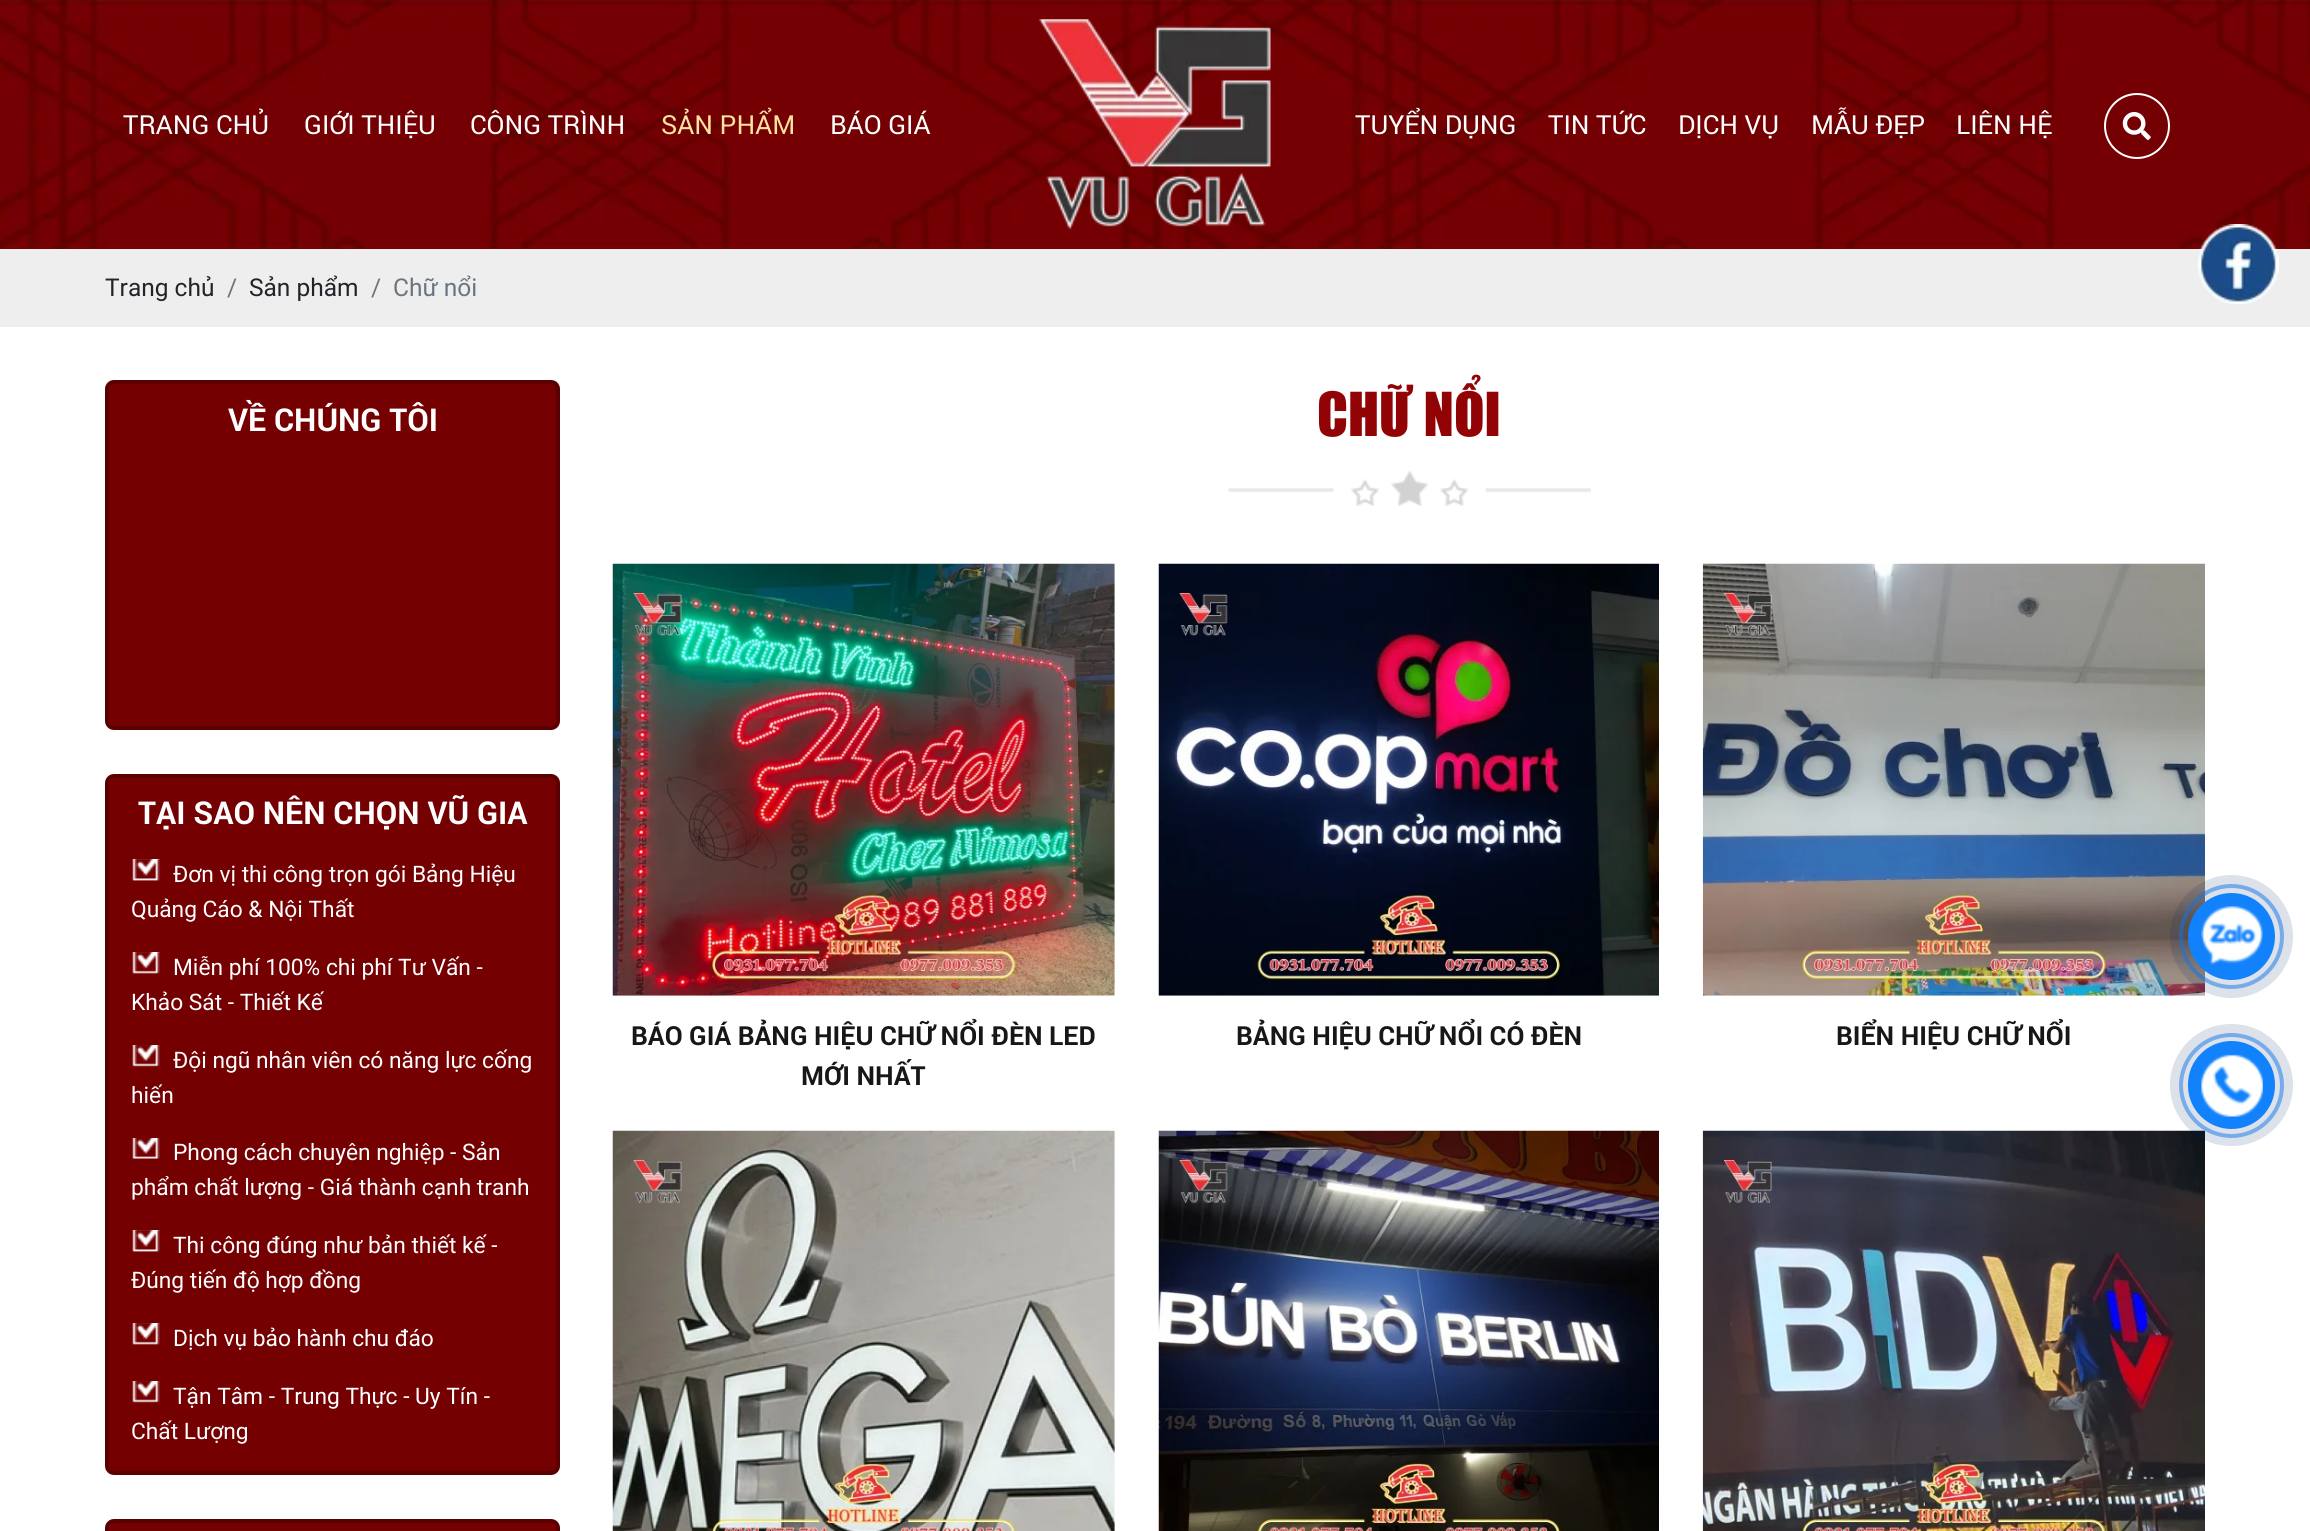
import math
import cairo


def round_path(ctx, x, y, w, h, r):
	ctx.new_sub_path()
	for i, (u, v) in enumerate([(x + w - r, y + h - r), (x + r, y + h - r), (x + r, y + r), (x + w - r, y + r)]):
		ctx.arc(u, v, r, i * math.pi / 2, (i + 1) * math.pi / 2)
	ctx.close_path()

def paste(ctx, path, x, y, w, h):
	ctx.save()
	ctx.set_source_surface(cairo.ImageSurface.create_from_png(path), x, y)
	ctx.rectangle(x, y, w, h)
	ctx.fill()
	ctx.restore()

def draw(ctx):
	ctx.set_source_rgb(1, 1, 1)
	ctx.paint()
	ctx.set_source_rgb(0.455, 0, 0.008)
	ctx.rectangle(0, 248, 2310, 1)
	ctx.fill()
	paste(ctx, 'media/1.png', 0, 0, 2310, 249)
	ctx.select_font_face('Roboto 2')
	ctx.set_font_size(26.25)
	ctx.set_source_rgb(1, 1, 1)
	for x, y, s in [
		(123, 134, 'TRANG CHỦ'),
		(304, 134, 'GIỚI THIỆU'),
		(470, 134, 'CÔNG TRÌNH'),
	]:
		ctx.move_to(x, y)
		ctx.show_text(s)
	ctx.set_source_rgb(1, 0.882, 0.627)
	ctx.move_to(661, 134)
	ctx.show_text('SẢN PHẨM')
	ctx.set_source_rgb(1, 1, 1)
	ctx.move_to(830, 134)
	ctx.show_text('BÁO GIÁ')
	paste(ctx, 'media/2.png', 1039, 19, 232, 211)
	for x, y, s in [
		(1355, 134, 'TUYỂN DỤNG'),
		(1548, 134, 'TIN TỨC'),
		(1678, 134, 'DỊCH VỤ'),
		(1811, 134, 'MẪU ĐẸP'),
		(1956, 134, 'LIÊN HỆ'),
	]:
		ctx.move_to(x, y)
		ctx.show_text(s)
	ctx.new_path()
	ctx.arc(2137, 126, 32, 0, 2 * math.pi)
	ctx.stroke()
	paste(ctx, 'media/3.png', 2122, 112, 29, 28)
	ctx.set_source_rgb(0.933, 0.933, 0.933)
	ctx.rectangle(0, 249, 2310, 78)
	ctx.fill()
	ctx.select_font_face('Roboto')
	ctx.set_font_size(24.5)
	ctx.set_source_rgb(0.129, 0.145, 0.161)
	ctx.move_to(105, 296)
	ctx.show_text('Trang chủ')
	ctx.set_source_rgb(0.424, 0.459, 0.49)
	ctx.move_to(227, 296)
	ctx.show_text('/')
	ctx.set_source_rgb(0.129, 0.145, 0.161)
	ctx.move_to(249, 296)
	ctx.show_text('Sản phẩm')
	ctx.set_source_rgb(0.424, 0.459, 0.49)
	ctx.move_to(371, 296)
	ctx.show_text('/')
	ctx.move_to(393, 296)
	ctx.show_text('Chữ nổi')
	paste(ctx, 'media/4.png', 2198, 224, 81, 80)
	ctx.set_source_rgb(0.455, 0, 0.008)
	round_path(ctx, 107, 382, 451, 346, 7)
	ctx.fill_preserve()
	ctx.set_source_rgb(0.357, 0, 0)
	ctx.set_line_width(4)
	ctx.stroke()
	ctx.select_font_face('Roboto', cairo.FONT_SLANT_NORMAL, cairo.FONT_WEIGHT_BOLD)
	ctx.set_font_size(31.5)
	ctx.set_source_rgb(1, 1, 1)
	ctx.move_to(228, 431)
	ctx.show_text('VỀ CHÚNG TÔI')
	ctx.set_source_rgb(0.455, 0, 0.008)
	round_path(ctx, 107, 776, 451, 697, 7)
	ctx.fill_preserve()
	ctx.set_source_rgb(0.357, 0, 0)
	ctx.stroke()
	ctx.set_source_rgb(1, 1, 1)
	ctx.move_to(138, 824)
	ctx.show_text('TẠI SAO NÊN CHỌN VŨ GIA')
	paste(ctx, 'media/5.png', 132, 859, 28, 22)
	ctx.select_font_face('Roboto')
	ctx.set_font_size(22.75)
	ctx.move_to(173, 882)
	ctx.show_text('Đơn vị thi công trọn gói Bảng Hiệu')
	ctx.move_to(131, 917)
	ctx.show_text('Quảng Cáo & Nội Thất')
	paste(ctx, 'media/6.png', 132, 952, 28, 22)
	ctx.move_to(173, 975)
	ctx.show_text('Miễn phí 100% chi phí Tư Vấn -')
	ctx.move_to(131, 1010)
	ctx.show_text('Khảo Sát - Thiết Kế')
	paste(ctx, 'media/7.png', 132, 1045, 28, 22)
	ctx.move_to(173, 1068)
	ctx.show_text('Đội ngũ nhân viên có năng lực cống')
	ctx.move_to(131, 1103)
	ctx.show_text('hiến')
	paste(ctx, 'media/8.png', 132, 1138, 28, 21)
	ctx.move_to(173, 1160)
	ctx.show_text('Phong cách chuyên nghiệp - Sản')
	ctx.move_to(131, 1195)
	ctx.show_text('phẩm chất lượng - Giá thành cạnh tranh')
	paste(ctx, 'media/5.png', 132, 1230, 28, 22)
	ctx.move_to(173, 1253)
	ctx.show_text('Thi công đúng như bản thiết kế -')
	ctx.move_to(131, 1288)
	ctx.show_text('Đúng tiến độ hợp đồng')
	paste(ctx, 'media/6.png', 132, 1323, 28, 22)
	ctx.move_to(173, 1346)
	ctx.show_text('Dịch vụ bảo hành chu đáo')
	paste(ctx, 'media/7.png', 132, 1381, 28, 22)
	ctx.move_to(173, 1404)
	ctx.show_text('Tận Tâm - Trung Thực - Uy Tín -')
	ctx.move_to(131, 1439)
	ctx.show_text('Chất Lượng')
	ctx.set_source_rgb(0.455, 0, 0.008)
	round_path(ctx, 107, 1521, 451, 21, 7)
	ctx.fill_preserve()
	ctx.set_source_rgb(0.357, 0, 0)
	ctx.stroke()
	paste(ctx, 'media/9.png', 1228, 470, 363, 36)
	ctx.select_font_face('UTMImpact')
	ctx.set_font_size(56)
	ctx.set_source_rgb(0.569, 0.012, 0.02)
	ctx.move_to(1317, 436)
	ctx.show_text('CHỮ NỔI')
	paste(ctx, 'media/10.png', 612, 563, 503, 433)
	ctx.select_font_face('Roboto', cairo.FONT_SLANT_NORMAL, cairo.FONT_WEIGHT_BOLD)
	ctx.set_font_size(26.25)
	ctx.set_source_rgb(0.09, 0.09, 0.09)
	ctx.move_to(631, 1045)
	ctx.show_text('BÁO GIÁ BẢNG HIỆU CHỮ NỔI ĐÈN LED')
	ctx.move_to(801, 1085)
	ctx.show_text('MỚI NHẤT')
	paste(ctx, 'media/11.png', 1158, 563, 501, 433)
	ctx.move_to(1236, 1045)
	ctx.show_text('BẢNG HIỆU CHỮ NỔI CÓ ĐÈN')
	paste(ctx, 'media/12.png', 1702, 563, 503, 433)
	ctx.move_to(1836, 1045)
	ctx.show_text('BIỂN HIỆU CHỮ NỔI')
	paste(ctx, 'media/13.png', 612, 1130, 503, 401)
	paste(ctx, 'media/14.png', 1158, 1130, 501, 401)
	paste(ctx, 'media/15.png', 1702, 1130, 503, 401)
	ctx.arc(2231.5, 936.5, 50.5, 0, 2 * math.pi)
	ctx.set_source_rgba(0.067, 0.51, 0.988, 0.5)
	ctx.stroke()
	ctx.set_source_rgba(0.027, 0.161, 0.404, 0.14)
	ctx.arc(2231.5, 936.5, 61.5, 0, 2 * math.pi)
	ctx.fill()
	ctx.set_source_rgb(0.067, 0.51, 0.988)
	ctx.arc(2231.5, 936.5, 43.5, 0, 2 * math.pi)
	ctx.fill()
	paste(ctx, 'media/16.png', 2201, 906, 62, 59)
	ctx.arc(2231.5, 1085.5, 50.5, 0, 2 * math.pi)
	ctx.set_source_rgb(0.533, 0.757, 0.996)
	ctx.stroke()
	ctx.set_source_rgba(0.027, 0.161, 0.404, 0.14)
	round_path(ctx, 2170, 1024, 123, 122, 61)
	ctx.fill()
	ctx.set_source_rgb(0.067, 0.51, 0.988)
	round_path(ctx, 2188, 1041, 87, 88, 43.5)
	ctx.fill()
	paste(ctx, 'media/17.png', 2201, 1054, 62, 63)


surface = cairo.ImageSurface(cairo.FORMAT_RGB24, 2310, 1531)
ctx = cairo.Context(surface)
options = cairo.FontOptions()
options.set_hint_metrics(cairo.HINT_METRICS_OFF)
options.set_hint_style(cairo.HINT_STYLE_NONE)
ctx.set_font_options(options)
ctx.set_miter_limit(4)
draw(ctx)
surface.write_to_png('image.png')
